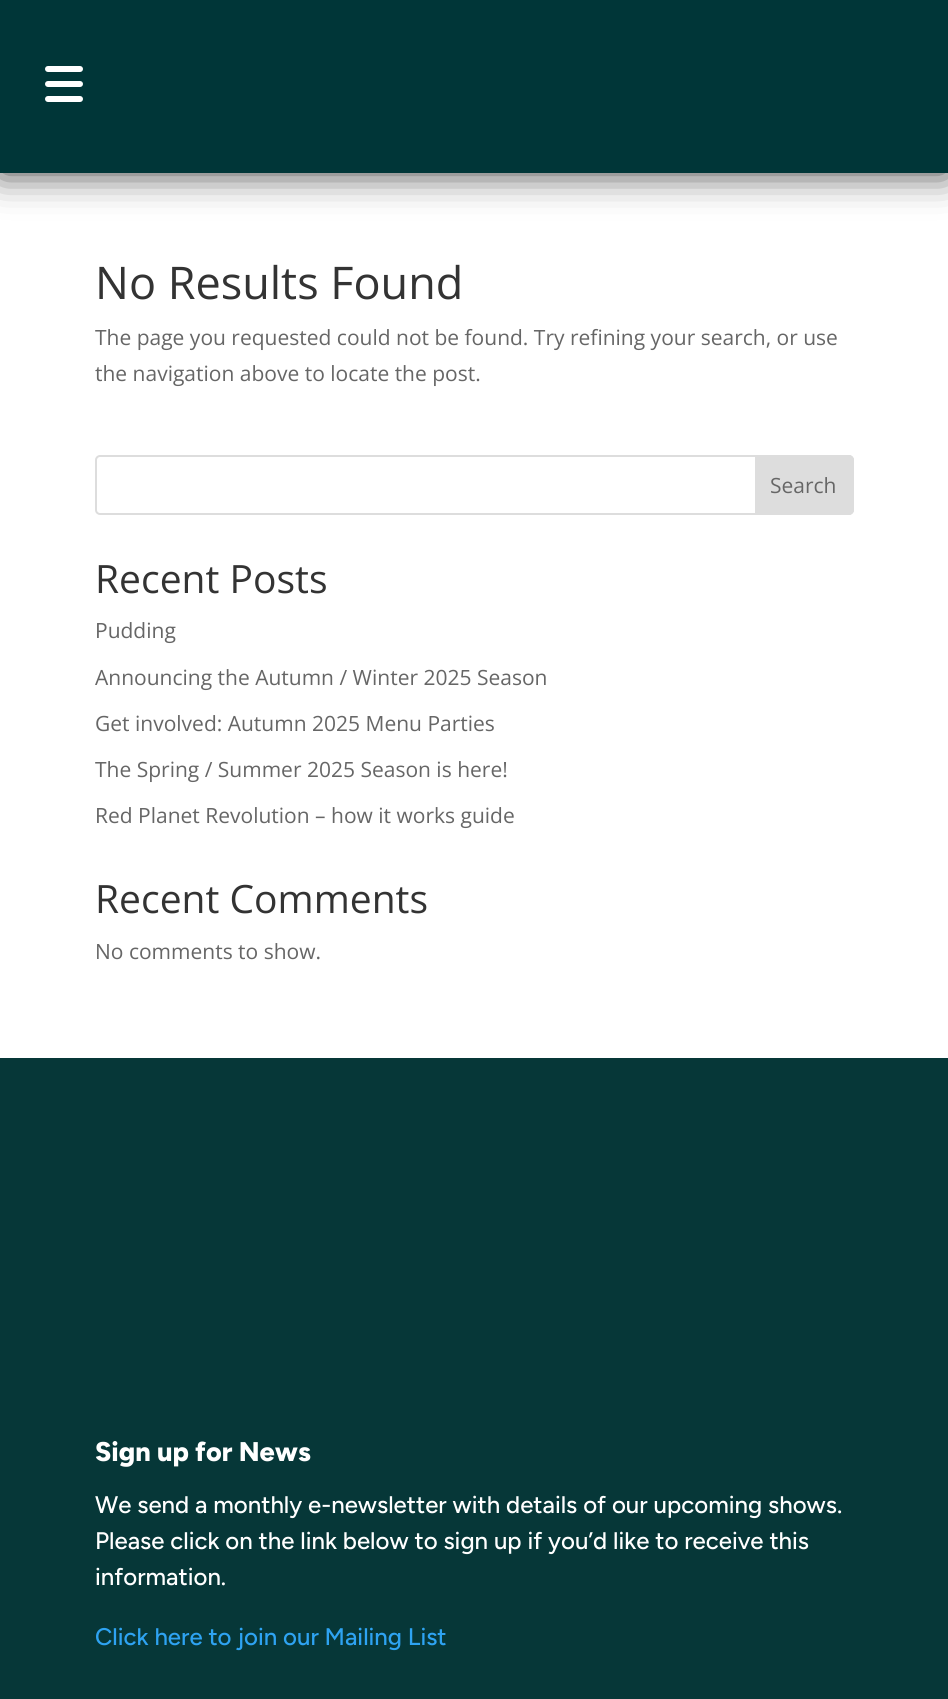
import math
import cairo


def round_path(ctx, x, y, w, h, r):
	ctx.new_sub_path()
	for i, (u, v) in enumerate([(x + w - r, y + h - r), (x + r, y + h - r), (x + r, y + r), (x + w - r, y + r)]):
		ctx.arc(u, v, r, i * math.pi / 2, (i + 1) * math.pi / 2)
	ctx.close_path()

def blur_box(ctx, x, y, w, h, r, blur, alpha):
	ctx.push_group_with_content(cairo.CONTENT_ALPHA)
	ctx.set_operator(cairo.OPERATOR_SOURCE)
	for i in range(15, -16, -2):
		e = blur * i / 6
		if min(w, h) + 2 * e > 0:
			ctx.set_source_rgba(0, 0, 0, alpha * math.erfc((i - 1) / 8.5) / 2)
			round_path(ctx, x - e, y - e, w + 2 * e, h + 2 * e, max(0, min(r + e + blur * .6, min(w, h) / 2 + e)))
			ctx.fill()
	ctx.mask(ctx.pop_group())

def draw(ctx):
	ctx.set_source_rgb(1, 1, 1)
	ctx.paint()
	ctx.set_source_rgb(0, 0, 0)
	blur_box(ctx, 0, 0, 948, 173, 0, 19, 0.78)
	ctx.set_source_rgb(0, 0.212, 0.22)
	ctx.rectangle(0, 0, 948, 173)
	ctx.fill()
	ctx.set_source_rgb(1, 1, 1)
	round_path(ctx, 45, 66, 38, 6, 3)
	ctx.fill()
	round_path(ctx, 45, 81, 38, 6, 3)
	ctx.fill()
	round_path(ctx, 45, 96, 38, 6, 3)
	ctx.fill()
	ctx.select_font_face('Open Sans')
	ctx.set_font_size(45)
	ctx.set_source_rgb(0.2, 0.2, 0.2)
	ctx.move_to(95, 299)
	ctx.show_text('No Results Found')
	ctx.set_font_size(21)
	ctx.set_source_rgb(0.4, 0.4, 0.4)
	ctx.move_to(95, 345)
	ctx.show_text('The page you requested could not be found. Try refining your search, or use')
	ctx.move_to(95, 381)
	ctx.show_text('the navigation above to locate the post.')
	round_path(ctx, 96, 456, 757, 58, 4)
	ctx.set_source_rgb(0.867, 0.867, 0.867)
	ctx.stroke()
	ctx.new_path()
	ctx.move_to(756, 456)
	ctx.line_to(849, 456)
	ctx.curve_to(851, 456, 853, 458, 853, 460)
	ctx.line_to(853, 510)
	ctx.curve_to(853, 512, 851, 514, 849, 514)
	ctx.line_to(756, 514)
	ctx.close_path()
	ctx.fill_preserve()
	ctx.stroke()
	ctx.set_source_rgb(0.4, 0.4, 0.4)
	ctx.move_to(770, 493)
	ctx.show_text('Search')
	ctx.set_font_size(39)
	ctx.set_source_rgb(0.2, 0.2, 0.2)
	ctx.move_to(95, 593)
	ctx.show_text('Recent Posts')
	ctx.set_font_size(21)
	ctx.set_source_rgb(0.4, 0.4, 0.4)
	for x, y, s in [
		(95, 638, 'Pudding'),
		(95, 685, 'Announcing the Autumn / Winter 2025 Season'),
		(95, 731, 'Get involved: Autumn 2025 Menu Parties'),
		(95, 777, 'The Spring / Summer 2025 Season is here!'),
		(95, 823, 'Red Planet Revolution – how it works guide'),
	]:
		ctx.move_to(x, y)
		ctx.show_text(s)
	ctx.set_font_size(39)
	ctx.set_source_rgb(0.2, 0.2, 0.2)
	ctx.move_to(95, 913)
	ctx.show_text('Recent Comments')
	ctx.set_font_size(21)
	ctx.set_source_rgb(0.4, 0.4, 0.4)
	ctx.move_to(95, 959)
	ctx.show_text('No comments to show.')
	ctx.set_source_rgb(0.027, 0.216, 0.22)
	ctx.rectangle(0, 1058, 948, 641)
	ctx.fill()
	ctx.select_font_face('Figtree ExtraBold')
	ctx.set_font_size(27)
	ctx.set_source_rgb(1, 1, 1)
	ctx.move_to(95, 1461)
	ctx.show_text('Sign up for News')
	ctx.select_font_face('Figtree Medium')
	ctx.set_font_size(24)
	for x, y, s in [
		(95, 1513, 'We send a monthly e-newsletter with details of our upcoming shows.'),
		(95, 1549, 'Please click on the link below to sign up if you’d like to receive this'),
		(95, 1585, 'information.'),
	]:
		ctx.move_to(x, y)
		ctx.show_text(s)
	ctx.set_source_rgb(0.18, 0.639, 0.949)
	ctx.move_to(95, 1645)
	ctx.show_text('Click here to join our Mailing List')


surface = cairo.ImageSurface(cairo.FORMAT_RGB24, 948, 1699)
ctx = cairo.Context(surface)
options = cairo.FontOptions()
options.set_hint_metrics(cairo.HINT_METRICS_OFF)
options.set_hint_style(cairo.HINT_STYLE_NONE)
ctx.set_font_options(options)
ctx.set_miter_limit(4)
draw(ctx)
surface.write_to_png('image.png')
